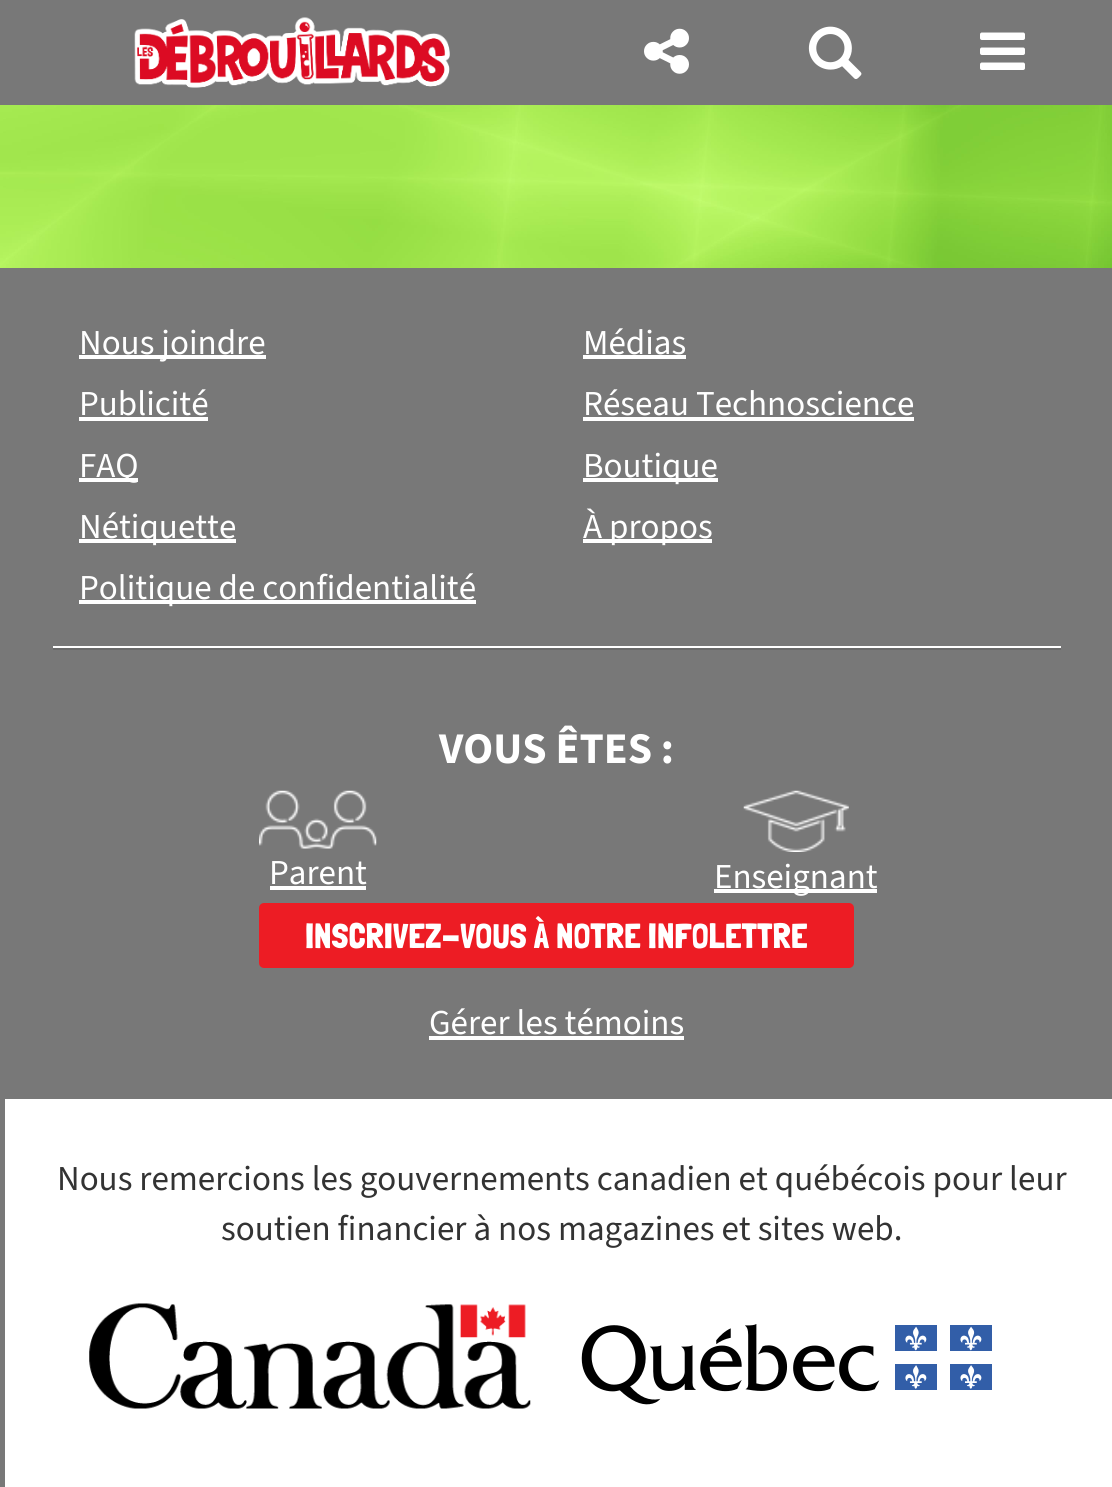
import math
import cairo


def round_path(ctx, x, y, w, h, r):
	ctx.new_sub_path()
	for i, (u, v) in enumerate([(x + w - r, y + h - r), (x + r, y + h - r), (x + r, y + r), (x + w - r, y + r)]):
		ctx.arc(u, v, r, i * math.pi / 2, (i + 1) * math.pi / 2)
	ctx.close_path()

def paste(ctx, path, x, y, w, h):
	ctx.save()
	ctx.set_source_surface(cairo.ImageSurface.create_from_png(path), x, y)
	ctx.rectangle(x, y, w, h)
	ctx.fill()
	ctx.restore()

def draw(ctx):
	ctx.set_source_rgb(1, 1, 1)
	ctx.paint()
	paste(ctx, 'media/1.png', 0, 105, 1112, 163)
	ctx.set_source_rgb(0.471, 0.471, 0.471)
	ctx.rectangle(0, 0, 1112, 105)
	ctx.fill()
	paste(ctx, 'media/2.png', 134, 17, 316, 71)
	paste(ctx, 'media/3.png', 644, 28, 45, 46)
	paste(ctx, 'media/4.png', 808, 26, 54, 53)
	paste(ctx, 'media/5.png', 980, 32, 45, 38)
	ctx.rectangle(0, 268, 1112, 1219)
	ctx.fill()
	ctx.set_source_rgb(1, 1, 1)
	ctx.rectangle(79, 355, 187, 4)
	ctx.fill()
	ctx.select_font_face('Source Sans 3')
	ctx.set_font_size(35)
	ctx.move_to(79, 354)
	ctx.show_text('Nous joindre')
	ctx.move_to(79, 415)
	ctx.show_text('Publicité')
	ctx.rectangle(79, 417, 129, 4)
	ctx.fill()
	ctx.rectangle(79, 478, 59, 4)
	ctx.fill()
	ctx.move_to(79, 477)
	ctx.show_text('FAQ')
	ctx.rectangle(79, 539, 157, 4)
	ctx.fill()
	ctx.move_to(79, 538)
	ctx.show_text('Nétiquette')
	ctx.rectangle(79, 600, 397, 4)
	ctx.fill()
	ctx.move_to(79, 599)
	ctx.show_text('Politique de confidentialité')
	ctx.move_to(583, 354)
	ctx.show_text('Médias')
	ctx.rectangle(583, 355, 103, 4)
	ctx.fill()
	ctx.move_to(583, 415)
	ctx.show_text('Réseau Technoscience')
	ctx.rectangle(583, 417, 331, 4)
	ctx.fill()
	ctx.rectangle(583, 478, 135, 4)
	ctx.fill()
	ctx.move_to(583, 477)
	ctx.show_text('Boutique')
	ctx.rectangle(583, 539, 129, 4)
	ctx.fill()
	ctx.move_to(583, 538)
	ctx.show_text('À propos')
	ctx.set_source_rgb(0.416, 0.416, 0.416)
	ctx.rectangle(53, 648, 1008, 2)
	ctx.fill()
	ctx.set_source_rgb(1, 1, 1)
	ctx.rectangle(53, 646, 1008, 2)
	ctx.fill()
	ctx.select_font_face('Source Sans 3', cairo.FONT_SLANT_NORMAL, cairo.FONT_WEIGHT_BOLD)
	ctx.set_font_size(43.75)
	ctx.move_to(439, 763)
	ctx.show_text('VOUS ÊTES :')
	paste(ctx, 'media/6.png', 259, 790, 118, 59)
	ctx.select_font_face('Source Sans 3')
	ctx.set_font_size(35)
	ctx.move_to(269, 884)
	ctx.show_text('Parent')
	ctx.rectangle(270, 886, 96, 4)
	ctx.fill()
	paste(ctx, 'media/7.png', 743, 790, 106, 62)
	ctx.rectangle(714, 889, 163, 4)
	ctx.fill()
	ctx.move_to(714, 888)
	ctx.show_text('Enseignant')
	ctx.set_source_rgb(0.929, 0.11, 0.141)
	round_path(ctx, 259, 903, 595, 65, 5)
	ctx.fill()
	ctx.select_font_face('Londrina Solid')
	ctx.set_source_rgb(1, 1, 1)
	ctx.move_to(305, 948)
	ctx.show_text('INSCRIVEZ-VOUS À NOTRE INFOLETTRE')
	ctx.select_font_face('Source Sans 3')
	ctx.move_to(429, 1034)
	ctx.show_text('Gérer les témoins')
	ctx.rectangle(429, 1036, 255, 4)
	ctx.fill()
	ctx.rectangle(5, 1099, 1107, 388)
	ctx.fill()
	ctx.set_source_rgb(0.2, 0.2, 0.2)
	ctx.move_to(57, 1190)
	ctx.show_text('Nous remercions les gouvernements canadien et québécois pour leur')
	ctx.move_to(221, 1240)
	ctx.show_text('soutien financier à nos magazines et sites web.')
	paste(ctx, 'media/8.png', 89, 1303, 442, 106)
	paste(ctx, 'media/9.png', 581, 1324, 411, 81)


surface = cairo.ImageSurface(cairo.FORMAT_RGB24, 1112, 1487)
ctx = cairo.Context(surface)
options = cairo.FontOptions()
options.set_hint_metrics(cairo.HINT_METRICS_OFF)
options.set_hint_style(cairo.HINT_STYLE_NONE)
ctx.set_font_options(options)
ctx.set_miter_limit(4)
draw(ctx)
surface.write_to_png('image.png')
